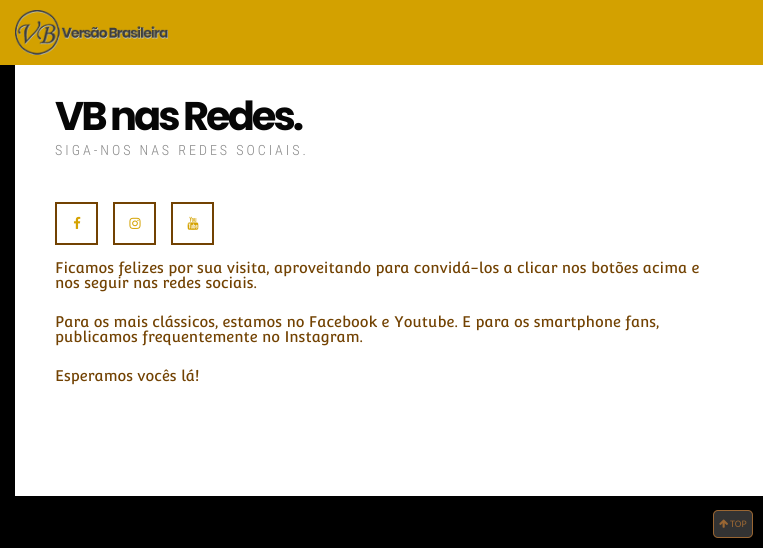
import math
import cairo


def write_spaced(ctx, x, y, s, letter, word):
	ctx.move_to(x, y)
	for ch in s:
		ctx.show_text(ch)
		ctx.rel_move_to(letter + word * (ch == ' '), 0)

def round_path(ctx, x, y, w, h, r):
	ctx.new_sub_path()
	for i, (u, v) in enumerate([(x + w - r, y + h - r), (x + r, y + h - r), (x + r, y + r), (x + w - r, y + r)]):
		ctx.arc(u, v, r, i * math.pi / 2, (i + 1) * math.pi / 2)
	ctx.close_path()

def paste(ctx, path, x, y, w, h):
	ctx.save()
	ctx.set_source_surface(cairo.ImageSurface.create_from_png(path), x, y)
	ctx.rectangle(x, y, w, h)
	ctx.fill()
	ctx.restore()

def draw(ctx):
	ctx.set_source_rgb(1, 1, 1)
	ctx.paint()
	ctx.set_source_rgb(0.827, 0.631, 0)
	ctx.rectangle(0, 0, 763, 65)
	ctx.fill()
	paste(ctx, 'media/1.png', 15, 10, 153, 45)
	ctx.set_source_rgb(0, 0, 0)
	ctx.rectangle(0, 65, 15, 431)
	ctx.fill()
	ctx.select_font_face('Poppins', cairo.FONT_SLANT_NORMAL, cairo.FONT_WEIGHT_BOLD)
	ctx.set_font_size(40)
	ctx.set_source_rgb(0.027, 0.027, 0.027)
	write_spaced(ctx, 55, 130, 'VB nas Redes.', -3, 0)
	ctx.select_font_face('Roboto Condensed Light')
	ctx.set_font_size(14)
	ctx.set_source_rgb(0.529, 0.529, 0.529)
	write_spaced(ctx, 55, 155, 'SIGA-NOS NAS REDES SOCIAIS.', 3, 0)
	ctx.rectangle(56, 203, 41, 41)
	ctx.set_source_rgb(0.447, 0.259, 0.008)
	ctx.stroke()
	paste(ctx, 'media/2.png', 73, 216, 8, 13)
	ctx.rectangle(114, 203, 41, 41)
	ctx.stroke()
	paste(ctx, 'media/3.png', 129, 217, 12, 12)
	ctx.rectangle(172, 203, 41, 41)
	ctx.stroke()
	paste(ctx, 'media/4.png', 187, 216, 12, 14)
	ctx.select_font_face('Convergence')
	ctx.set_font_size(15)
	for x, y, s in [
		(55, 273, 'Ficamos felizes por sua visita, aproveitando para convidá-los a clicar nos botões acima e'),
		(55, 288, 'nos seguir nas redes sociais.'),
		(55, 327, 'Para os mais clássicos, estamos no Facebook e Youtube. E para os smartphone fans,'),
		(55, 342, 'publicamos frequentemente no Instagram.'),
		(55, 381, 'Esperamos vocês lá!'),
	]:
		ctx.move_to(x, y)
		ctx.show_text(s)
	ctx.set_source_rgb(0, 0, 0)
	ctx.rectangle(0, 496, 763, 52)
	ctx.fill()
	ctx.set_source_rgb(0.2, 0.2, 0.2)
	round_path(ctx, 713.5, 510.5, 39, 27, 4.5)
	ctx.fill_preserve()
	ctx.set_source_rgb(0.6, 0.4, 0.2)
	ctx.set_line_width(1)
	ctx.stroke()
	paste(ctx, 'media/5.png', 719, 519, 9, 9)
	ctx.select_font_face('Carlito')
	ctx.set_font_size(10)
	ctx.move_to(730, 527)
	ctx.show_text('TOP')


surface = cairo.ImageSurface(cairo.FORMAT_RGB24, 763, 548)
ctx = cairo.Context(surface)
options = cairo.FontOptions()
options.set_hint_metrics(cairo.HINT_METRICS_OFF)
options.set_hint_style(cairo.HINT_STYLE_NONE)
ctx.set_font_options(options)
ctx.set_miter_limit(4)
draw(ctx)
surface.write_to_png('image.png')
